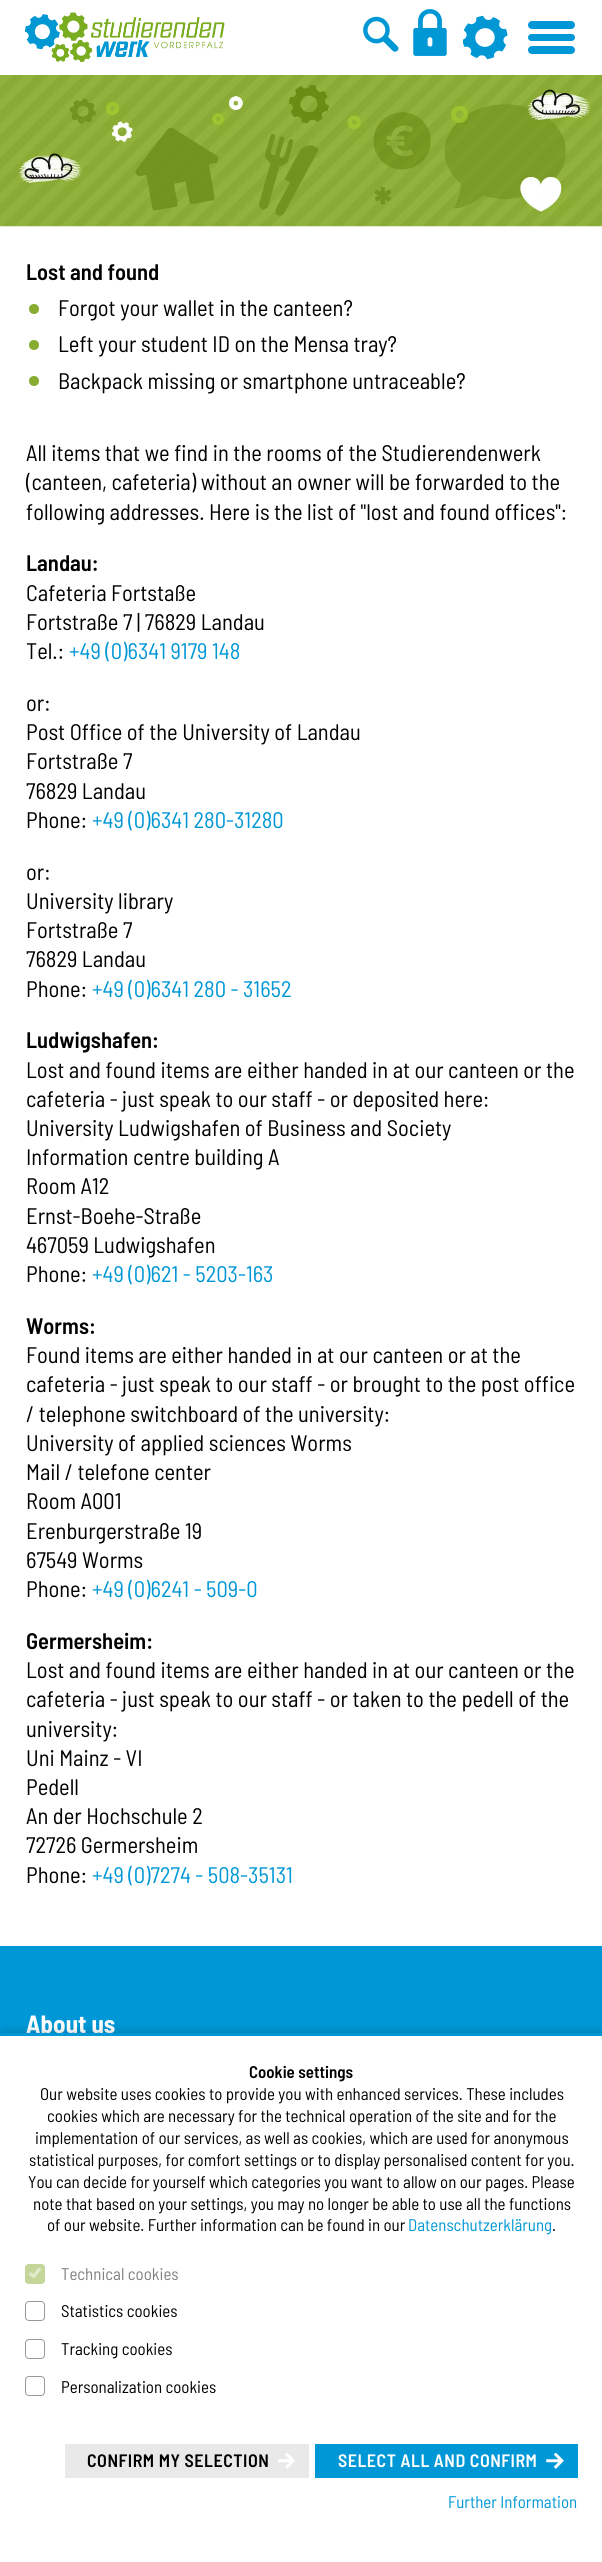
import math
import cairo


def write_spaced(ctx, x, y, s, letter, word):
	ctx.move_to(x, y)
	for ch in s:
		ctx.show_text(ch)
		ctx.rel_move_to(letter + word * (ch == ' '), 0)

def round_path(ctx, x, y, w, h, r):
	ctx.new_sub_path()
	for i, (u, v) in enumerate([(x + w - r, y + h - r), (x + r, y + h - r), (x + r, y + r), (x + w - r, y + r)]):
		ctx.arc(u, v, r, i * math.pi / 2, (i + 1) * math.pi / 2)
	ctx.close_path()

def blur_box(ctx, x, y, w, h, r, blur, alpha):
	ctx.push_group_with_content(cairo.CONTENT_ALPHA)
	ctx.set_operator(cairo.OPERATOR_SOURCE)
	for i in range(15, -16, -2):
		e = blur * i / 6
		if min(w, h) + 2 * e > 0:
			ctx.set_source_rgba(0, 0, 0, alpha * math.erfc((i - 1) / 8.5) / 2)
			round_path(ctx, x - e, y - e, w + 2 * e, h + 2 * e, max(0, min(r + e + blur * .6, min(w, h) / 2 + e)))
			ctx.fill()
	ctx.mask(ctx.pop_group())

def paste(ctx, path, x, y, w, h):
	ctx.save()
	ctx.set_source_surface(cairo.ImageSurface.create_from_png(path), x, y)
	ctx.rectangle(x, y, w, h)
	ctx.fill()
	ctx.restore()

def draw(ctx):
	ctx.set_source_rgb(1, 1, 1)
	ctx.paint()
	paste(ctx, 'media/1.png', 25, 12, 200, 50)
	paste(ctx, 'media/2.png', 363, 16, 36, 36)
	paste(ctx, 'media/3.png', 413, 9, 34, 47)
	paste(ctx, 'media/4.png', 463, 15, 45, 45)
	ctx.set_source_rgb(0, 0.592, 0.839)
	round_path(ctx, 528, 34, 47, 7, 3.5)
	ctx.fill()
	round_path(ctx, 528, 21, 47, 8, 4)
	ctx.fill()
	round_path(ctx, 528, 46, 47, 8, 4)
	ctx.fill()
	paste(ctx, 'media/5.png', 0, 75, 602, 152)
	ctx.select_font_face('Barlow Semi Condensed SemiBold')
	ctx.set_font_size(22.5)
	ctx.set_source_rgb(0, 0, 0)
	ctx.move_to(26, 280)
	ctx.show_text('Lost and found')
	ctx.set_source_rgb(0.533, 0.675, 0.196)
	ctx.new_path()
	ctx.arc(34, 309, 5, 0, 2 * math.pi)
	ctx.fill()
	ctx.select_font_face('Barlow Semi Condensed')
	ctx.set_source_rgb(0, 0, 0)
	ctx.move_to(58, 316)
	ctx.show_text('Forgot your wallet in the canteen?')
	ctx.set_source_rgb(0.533, 0.675, 0.196)
	ctx.new_path()
	ctx.arc(34, 345, 5, 0, 2 * math.pi)
	ctx.fill()
	ctx.set_source_rgb(0, 0, 0)
	ctx.move_to(58, 352)
	ctx.show_text('Left your student ID on the Mensa tray?')
	ctx.set_source_rgb(0.533, 0.675, 0.196)
	ctx.new_path()
	ctx.arc(34, 381, 5, 0, 2 * math.pi)
	ctx.fill()
	ctx.set_source_rgb(0, 0, 0)
	for x, y, s in [
		(58, 389, 'Backpack missing or smartphone untraceable?'),
		(26, 461, 'All items that we find in the rooms of the Studierendenwerk'),
		(26, 490, '(canteen, cafeteria) without an owner will be forwarded to the'),
		(26, 520, 'following addresses. Here is the list of "lost and found offices":'),
	]:
		ctx.move_to(x, y)
		ctx.show_text(s)
	ctx.select_font_face('Barlow Semi Condensed SemiBold')
	ctx.move_to(26, 571)
	ctx.show_text('Landau:')
	ctx.select_font_face('Barlow Semi Condensed')
	for x, y, s in [
		(26, 601, 'Cafeteria Fortstaße'),
		(26, 630, 'Fortstraße 7 | 76829 Landau'),
		(26, 659, 'Tel.:'),
	]:
		ctx.move_to(x, y)
		ctx.show_text(s)
	ctx.set_source_rgb(0, 0.592, 0.839)
	ctx.move_to(69, 659)
	ctx.show_text('+49 (0)6341 9179 148')
	ctx.set_source_rgb(0, 0, 0)
	for x, y, s in [
		(26, 711, 'or:'),
		(26, 740, 'Post Office of the University of Landau'),
		(26, 769, 'Fortstraße 7'),
		(26, 799, '76829 Landau'),
		(26, 828, 'Phone:'),
	]:
		ctx.move_to(x, y)
		ctx.show_text(s)
	ctx.set_source_rgb(0, 0.592, 0.839)
	ctx.move_to(92, 828)
	ctx.show_text('+49 (0)6341 280-31280')
	ctx.set_source_rgb(0, 0, 0)
	for x, y, s in [
		(26, 880, 'or:'),
		(26, 909, 'University library'),
		(26, 938, 'Fortstraße 7'),
		(26, 967, '76829 Landau'),
		(26, 997, 'Phone:'),
	]:
		ctx.move_to(x, y)
		ctx.show_text(s)
	ctx.set_source_rgb(0, 0.592, 0.839)
	ctx.move_to(92, 997)
	ctx.show_text('+49 (0)6341 280 - 31652')
	ctx.select_font_face('Barlow Semi Condensed SemiBold')
	ctx.set_source_rgb(0, 0, 0)
	ctx.move_to(26, 1048)
	ctx.show_text('Ludwigshafen:')
	ctx.select_font_face('Barlow Semi Condensed')
	for x, y, s in [
		(26, 1078, 'Lost and found items are either handed in at our canteen or the'),
		(26, 1107, 'cafeteria - just speak to our staff - or deposited here:'),
		(26, 1136, 'University Ludwigshafen of Business and Society'),
		(26, 1165, 'Information centre building A'),
		(26, 1194, 'Room A12'),
		(26, 1224, 'Ernst-Boehe-Straße'),
		(26, 1253, '467059 Ludwigshafen'),
		(26, 1282, 'Phone:'),
	]:
		ctx.move_to(x, y)
		ctx.show_text(s)
	ctx.set_source_rgb(0, 0.592, 0.839)
	ctx.move_to(92, 1282)
	ctx.show_text('+49 (0)621 - 5203-163')
	ctx.select_font_face('Barlow Semi Condensed SemiBold')
	ctx.set_source_rgb(0, 0, 0)
	ctx.move_to(26, 1334)
	ctx.show_text('Worms:')
	ctx.select_font_face('Barlow Semi Condensed')
	for x, y, s in [
		(26, 1363, 'Found items are either handed in at our canteen or at the'),
		(26, 1392, 'cafeteria - just speak to our staff - or brought to the post office'),
		(26, 1422, '/ telephone switchboard of the university:'),
		(26, 1451, 'University of applied sciences Worms'),
		(26, 1480, 'Mail / telefone center'),
		(26, 1509, 'Room A001'),
		(26, 1539, 'Erenburgerstraße 19'),
		(26, 1568, '67549 Worms'),
		(26, 1597, 'Phone:'),
	]:
		ctx.move_to(x, y)
		ctx.show_text(s)
	ctx.set_source_rgb(0, 0.592, 0.839)
	ctx.move_to(92, 1597)
	ctx.show_text('+49 (0)6241 - 509-0')
	ctx.select_font_face('Barlow Semi Condensed SemiBold')
	ctx.set_source_rgb(0, 0, 0)
	ctx.move_to(26, 1649)
	ctx.show_text('Germersheim:')
	ctx.select_font_face('Barlow Semi Condensed')
	for x, y, s in [
		(26, 1678, 'Lost and found items are either handed in at our canteen or the'),
		(26, 1707, 'cafeteria - just speak to our staff - or taken to the pedell of the'),
		(26, 1737, 'university:'),
		(26, 1766, 'Uni Mainz - VI'),
		(26, 1795, 'Pedell'),
		(26, 1824, 'An der Hochschule 2'),
		(26, 1853, '72726 Germersheim'),
		(26, 1883, 'Phone:'),
	]:
		ctx.move_to(x, y)
		ctx.show_text(s)
	ctx.set_source_rgb(0, 0.592, 0.839)
	ctx.move_to(92, 1883)
	ctx.show_text('+49 (0)7274 - 508-35131')
	ctx.rectangle(0, 1946, 602, 87)
	ctx.fill()
	ctx.select_font_face('Barlow Semi Condensed', cairo.FONT_SLANT_NORMAL, cairo.FONT_WEIGHT_BOLD)
	ctx.set_font_size(25)
	ctx.set_source_rgb(1, 1, 1)
	ctx.move_to(26, 2033)
	ctx.show_text('About us')
	ctx.set_source_rgb(0, 0, 0)
	blur_box(ctx, 3, 2035, 597, 525, 0, 5.5, 0.35)
	ctx.set_source_rgb(1, 1, 1)
	ctx.rectangle(0, 2036, 602, 526)
	ctx.fill()
	ctx.set_source_rgb(0, 0.592, 0.839)
	ctx.rectangle(0, 2033, 602, 3)
	ctx.fill()
	ctx.select_font_face('Barlow Semi Condensed SemiBold')
	ctx.set_font_size(16.9)
	ctx.set_source_rgb(0, 0, 0)
	ctx.move_to(249, 2078)
	ctx.show_text('Cookie settings')
	ctx.select_font_face('Barlow Semi Condensed')
	for x, y, s in [
		(40, 2100, 'Our website uses cookies to provide you with enhanced services. These includes'),
		(47, 2122, 'cookies which are necessary for the technical operation of the site and for the'),
		(35, 2144, 'implementation of our services, as well as cookies, which are used for anonymous'),
		(29, 2166, 'statistical purposes, for comfort settings or to display personalised content for you.'),
		(28, 2188, 'You can decide for yourself which categories you want to allow on our pages. Please'),
		(33, 2210, 'note that based on your settings, you may no longer be able to use all the functions'),
		(47, 2231, 'of our website. Further information can be found in our'),
	]:
		ctx.move_to(x, y)
		ctx.show_text(s)
	ctx.set_source_rgb(0, 0.592, 0.839)
	ctx.move_to(408, 2231)
	ctx.show_text('Datenschutzerklärung')
	ctx.set_source_rgb(0, 0, 0)
	ctx.move_to(552, 2231)
	ctx.show_text('.')
	ctx.set_source_rgb(0.769, 0.839, 0.6)
	round_path(ctx, 25, 2264, 20, 20, 4)
	ctx.fill()
	paste(ctx, 'media/6.png', 29, 2268, 12, 10)
	round_path(ctx, 25.5, 2264.5, 19, 19, 3.5)
	ctx.set_line_width(1)
	ctx.stroke()
	ctx.set_source_rgb(0.502, 0.502, 0.502)
	ctx.move_to(61, 2280)
	ctx.show_text('Technical cookies')
	round_path(ctx, 25.5, 2301.5, 19, 19, 3.5)
	ctx.set_source_rgb(0.6, 0.6, 0.6)
	ctx.stroke()
	ctx.set_source_rgb(0, 0, 0)
	ctx.move_to(61, 2317)
	ctx.show_text('Statistics cookies')
	round_path(ctx, 25.5, 2339.5, 19, 19, 3.5)
	ctx.set_source_rgb(0.6, 0.6, 0.6)
	ctx.stroke()
	ctx.set_source_rgb(0, 0, 0)
	ctx.move_to(61, 2355)
	ctx.show_text('Tracking cookies')
	round_path(ctx, 25.5, 2376.5, 19, 19, 3.5)
	ctx.set_source_rgb(0.6, 0.6, 0.6)
	ctx.stroke()
	ctx.set_source_rgb(0, 0, 0)
	ctx.move_to(61, 2393)
	ctx.show_text('Personalization cookies')
	ctx.set_source_rgb(0.914, 0.914, 0.914)
	ctx.rectangle(65, 2444, 244, 34)
	ctx.fill()
	paste(ctx, 'media/7.png', 278, 2453, 17, 16)
	ctx.select_font_face('Barlow Semi Condensed SemiBold')
	ctx.set_font_size(18)
	ctx.set_source_rgb(0, 0, 0)
	write_spaced(ctx, 87, 2467, 'CONFIRM MY SELECTION', 0.5, 0)
	ctx.set_source_rgb(0, 0.592, 0.839)
	ctx.rectangle(315, 2444, 263, 34)
	ctx.fill()
	paste(ctx, 'media/8.png', 546, 2453, 18, 16)
	ctx.set_source_rgb(1, 1, 1)
	write_spaced(ctx, 338, 2467, 'SELECT ALL AND CONFIRM', 0.5, 0)
	ctx.select_font_face('Barlow Semi Condensed')
	ctx.set_font_size(16.9)
	ctx.set_source_rgb(0, 0.592, 0.839)
	ctx.move_to(448, 2508)
	ctx.show_text('Further Information')


surface = cairo.ImageSurface(cairo.FORMAT_RGB24, 602, 2562)
ctx = cairo.Context(surface)
options = cairo.FontOptions()
options.set_hint_metrics(cairo.HINT_METRICS_OFF)
options.set_hint_style(cairo.HINT_STYLE_NONE)
ctx.set_font_options(options)
ctx.set_miter_limit(4)
draw(ctx)
surface.write_to_png('image.png')
